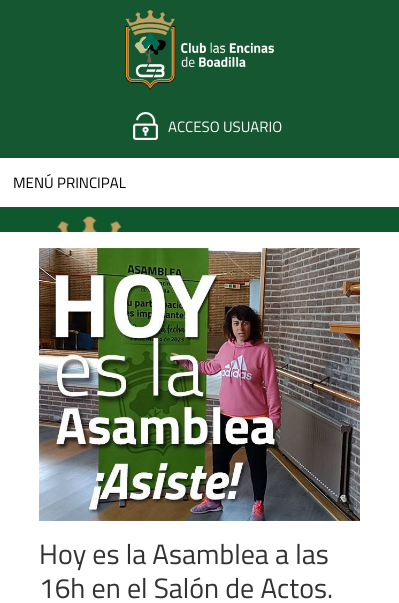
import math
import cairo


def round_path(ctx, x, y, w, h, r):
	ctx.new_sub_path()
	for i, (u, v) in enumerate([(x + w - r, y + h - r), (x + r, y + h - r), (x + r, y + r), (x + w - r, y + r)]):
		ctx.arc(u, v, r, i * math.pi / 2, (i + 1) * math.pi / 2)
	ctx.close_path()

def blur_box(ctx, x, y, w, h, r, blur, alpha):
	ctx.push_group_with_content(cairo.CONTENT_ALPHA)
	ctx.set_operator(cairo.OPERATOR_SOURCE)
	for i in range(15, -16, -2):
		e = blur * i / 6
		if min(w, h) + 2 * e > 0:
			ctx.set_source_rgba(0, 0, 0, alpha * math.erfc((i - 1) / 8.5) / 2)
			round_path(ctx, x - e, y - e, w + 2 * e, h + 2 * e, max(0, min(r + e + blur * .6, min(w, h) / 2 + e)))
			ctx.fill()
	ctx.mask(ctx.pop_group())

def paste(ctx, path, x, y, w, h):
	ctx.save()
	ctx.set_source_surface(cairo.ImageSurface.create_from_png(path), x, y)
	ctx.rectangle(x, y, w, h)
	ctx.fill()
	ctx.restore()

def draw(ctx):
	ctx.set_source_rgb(1, 1, 1)
	ctx.paint()
	paste(ctx, 'media/1.png', 0, 207, 399, 25)
	ctx.set_source_rgb(0.082, 0.341, 0.188)
	ctx.rectangle(0, 0, 399, 158)
	ctx.fill()
	paste(ctx, 'media/2.png', 125, 10, 149, 80)
	paste(ctx, 'media/3.png', 133, 112, 25, 28)
	ctx.select_font_face('Titillium Web')
	ctx.set_font_size(15)
	ctx.set_source_rgb(1, 1, 1)
	ctx.move_to(168, 132)
	ctx.show_text('ACCESO USUARIO')
	ctx.save()
	ctx.rectangle(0, 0, 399, 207)
	ctx.clip()
	ctx.set_source_rgb(0, 0, 0)
	blur_box(ctx, 0, 160, 399, 49, 0, 5, 0.2)
	ctx.restore()
	ctx.rectangle(0, 158, 399, 49)
	ctx.fill()
	ctx.set_source_rgb(0, 0, 0)
	ctx.move_to(13, 188)
	ctx.show_text('MENÚ PRINCIPAL')
	paste(ctx, 'media/4.png', 39, 248, 321, 273)
	ctx.set_font_size(28)
	ctx.set_source_rgb(0.196, 0.196, 0.196)
	ctx.move_to(39, 564)
	ctx.show_text('Hoy es la Asamblea a las')
	ctx.move_to(39, 598)
	ctx.show_text('16h en el Salón de Actos.')


surface = cairo.ImageSurface(cairo.FORMAT_RGB24, 399, 603)
ctx = cairo.Context(surface)
options = cairo.FontOptions()
options.set_hint_metrics(cairo.HINT_METRICS_OFF)
options.set_hint_style(cairo.HINT_STYLE_NONE)
ctx.set_font_options(options)
ctx.set_miter_limit(4)
draw(ctx)
surface.write_to_png('image.png')
